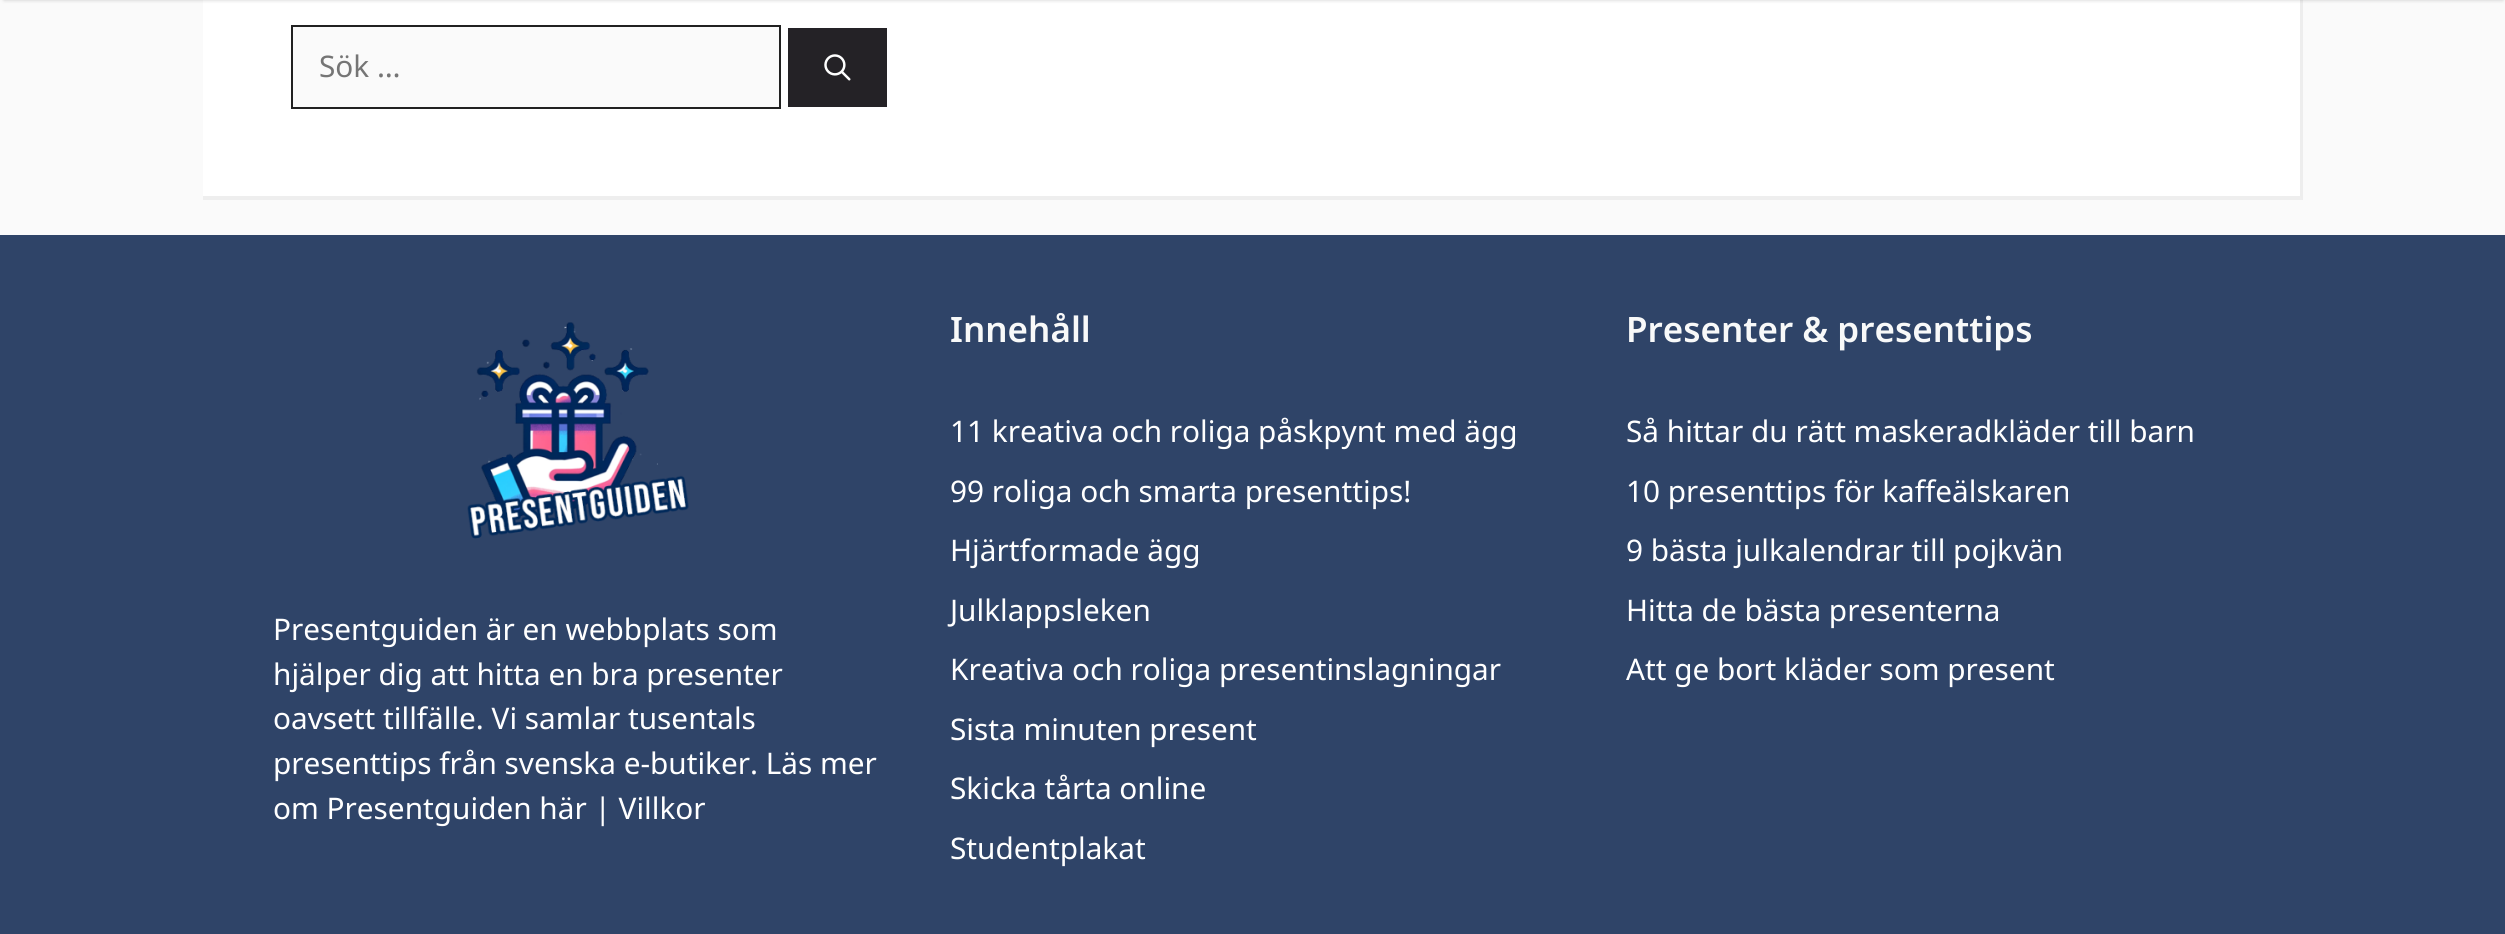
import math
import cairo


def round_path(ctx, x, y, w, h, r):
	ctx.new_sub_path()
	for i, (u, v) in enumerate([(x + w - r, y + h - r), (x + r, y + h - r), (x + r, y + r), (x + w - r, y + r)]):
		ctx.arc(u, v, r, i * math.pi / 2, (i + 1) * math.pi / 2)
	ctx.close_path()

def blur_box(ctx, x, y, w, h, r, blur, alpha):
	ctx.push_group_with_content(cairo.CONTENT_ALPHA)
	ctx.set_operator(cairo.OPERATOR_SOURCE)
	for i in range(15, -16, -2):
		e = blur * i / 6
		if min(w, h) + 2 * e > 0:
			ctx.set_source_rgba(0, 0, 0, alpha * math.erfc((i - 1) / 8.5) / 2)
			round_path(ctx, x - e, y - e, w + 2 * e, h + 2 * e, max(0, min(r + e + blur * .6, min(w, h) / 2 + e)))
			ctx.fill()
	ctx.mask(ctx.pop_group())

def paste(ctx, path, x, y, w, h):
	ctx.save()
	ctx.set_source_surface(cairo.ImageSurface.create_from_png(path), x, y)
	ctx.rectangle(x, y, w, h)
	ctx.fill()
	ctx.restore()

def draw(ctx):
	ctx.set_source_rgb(0.98, 0.98, 0.98)
	ctx.paint()
	ctx.set_source_rgb(1, 1, 1)
	ctx.rectangle(203, 0, 2100, 200)
	ctx.fill()
	ctx.set_source_rgb(0.929, 0.929, 0.929)
	ctx.new_path()
	ctx.move_to(2303, -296)
	ctx.line_to(2303, 200)
	ctx.line_to(2300, 196)
	ctx.line_to(2300, -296)
	ctx.close_path()
	ctx.fill()
	ctx.set_source_rgb(0, 0, 0)
	blur_box(ctx, 4, -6, 2499, 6, 0, 2, 0.2)
	ctx.set_source_rgba(0, 0, 0, 0.07)
	ctx.new_path()
	ctx.move_to(2303, 200)
	ctx.line_to(203, 200)
	ctx.line_to(203, 196)
	ctx.line_to(2300, 196)
	ctx.close_path()
	ctx.fill()
	ctx.set_source_rgb(0.98, 0.98, 0.98)
	ctx.rectangle(292, 26, 488, 82)
	ctx.fill_preserve()
	ctx.set_source_rgb(0.129, 0.129, 0.129)
	ctx.stroke()
	ctx.select_font_face('Noto Sans')
	ctx.set_font_size(29.75)
	ctx.set_source_rgb(0.459, 0.459, 0.459)
	ctx.move_to(319, 77)
	ctx.show_text('Sök …')
	ctx.set_source_rgb(0.141, 0.133, 0.149)
	ctx.rectangle(788, 28, 99, 79)
	ctx.fill()
	paste(ctx, 'media/1.png', 824, 54, 27, 27)
	ctx.set_source_rgb(0.184, 0.267, 0.408)
	ctx.rectangle(0, 235, 2505, 699)
	ctx.fill()
	ctx.select_font_face('Noto Sans SemiBold')
	ctx.set_font_size(35)
	ctx.set_source_rgb(0.969, 0.973, 0.976)
	ctx.move_to(950, 342)
	ctx.show_text('Innehåll')
	ctx.select_font_face('Noto Sans')
	ctx.set_font_size(29.75)
	ctx.set_source_rgb(1, 1, 1)
	for x, y, s in [
		(950, 442, '11 kreativa och roliga påskpynt med ägg'),
		(950, 502, '99 roliga och smarta presenttips!'),
		(950, 561, 'Hjärtformade ägg'),
		(950, 621, 'Julklappsleken'),
		(950, 680, 'Kreativa och roliga presentinslagningar'),
		(950, 740, 'Sista minuten present'),
		(950, 799, 'Skicka tårta online'),
		(950, 859, 'Studentplakat'),
	]:
		ctx.move_to(x, y)
		ctx.show_text(s)
	ctx.select_font_face('Noto Sans SemiBold')
	ctx.set_font_size(35)
	ctx.set_source_rgb(0.969, 0.973, 0.976)
	ctx.move_to(1626, 342)
	ctx.show_text('Presenter & presenttips')
	ctx.select_font_face('Noto Sans')
	ctx.set_font_size(29.75)
	ctx.set_source_rgb(1, 1, 1)
	for x, y, s in [
		(1626, 442, 'Så hittar du rätt maskeradkläder till barn'),
		(1626, 502, '10 presenttips för kaffeälskaren'),
		(1626, 561, '9 bästa julkalendrar till pojkvän'),
		(1626, 621, 'Hitta de bästa presenterna'),
		(1626, 680, 'Att ge bort kläder som present'),
	]:
		ctx.move_to(x, y)
		ctx.show_text(s)
	paste(ctx, 'media/2.png', 467, 322, 222, 217)
	for x, y, s in [
		(273, 640, 'Presentguiden är en webbplats som'),
		(273, 685, 'hjälper dig att hitta en bra presenter'),
		(273, 729, 'oavsett tillfälle. Vi samlar tusentals'),
		(273, 774, 'presenttips från svenska e-butiker. Läs mer'),
		(273, 819, 'om Presentguiden här | Villkor'),
	]:
		ctx.move_to(x, y)
		ctx.show_text(s)


surface = cairo.ImageSurface(cairo.FORMAT_RGB24, 2505, 934)
ctx = cairo.Context(surface)
options = cairo.FontOptions()
options.set_hint_metrics(cairo.HINT_METRICS_OFF)
options.set_hint_style(cairo.HINT_STYLE_NONE)
ctx.set_font_options(options)
ctx.set_miter_limit(4)
draw(ctx)
surface.write_to_png('image.png')
